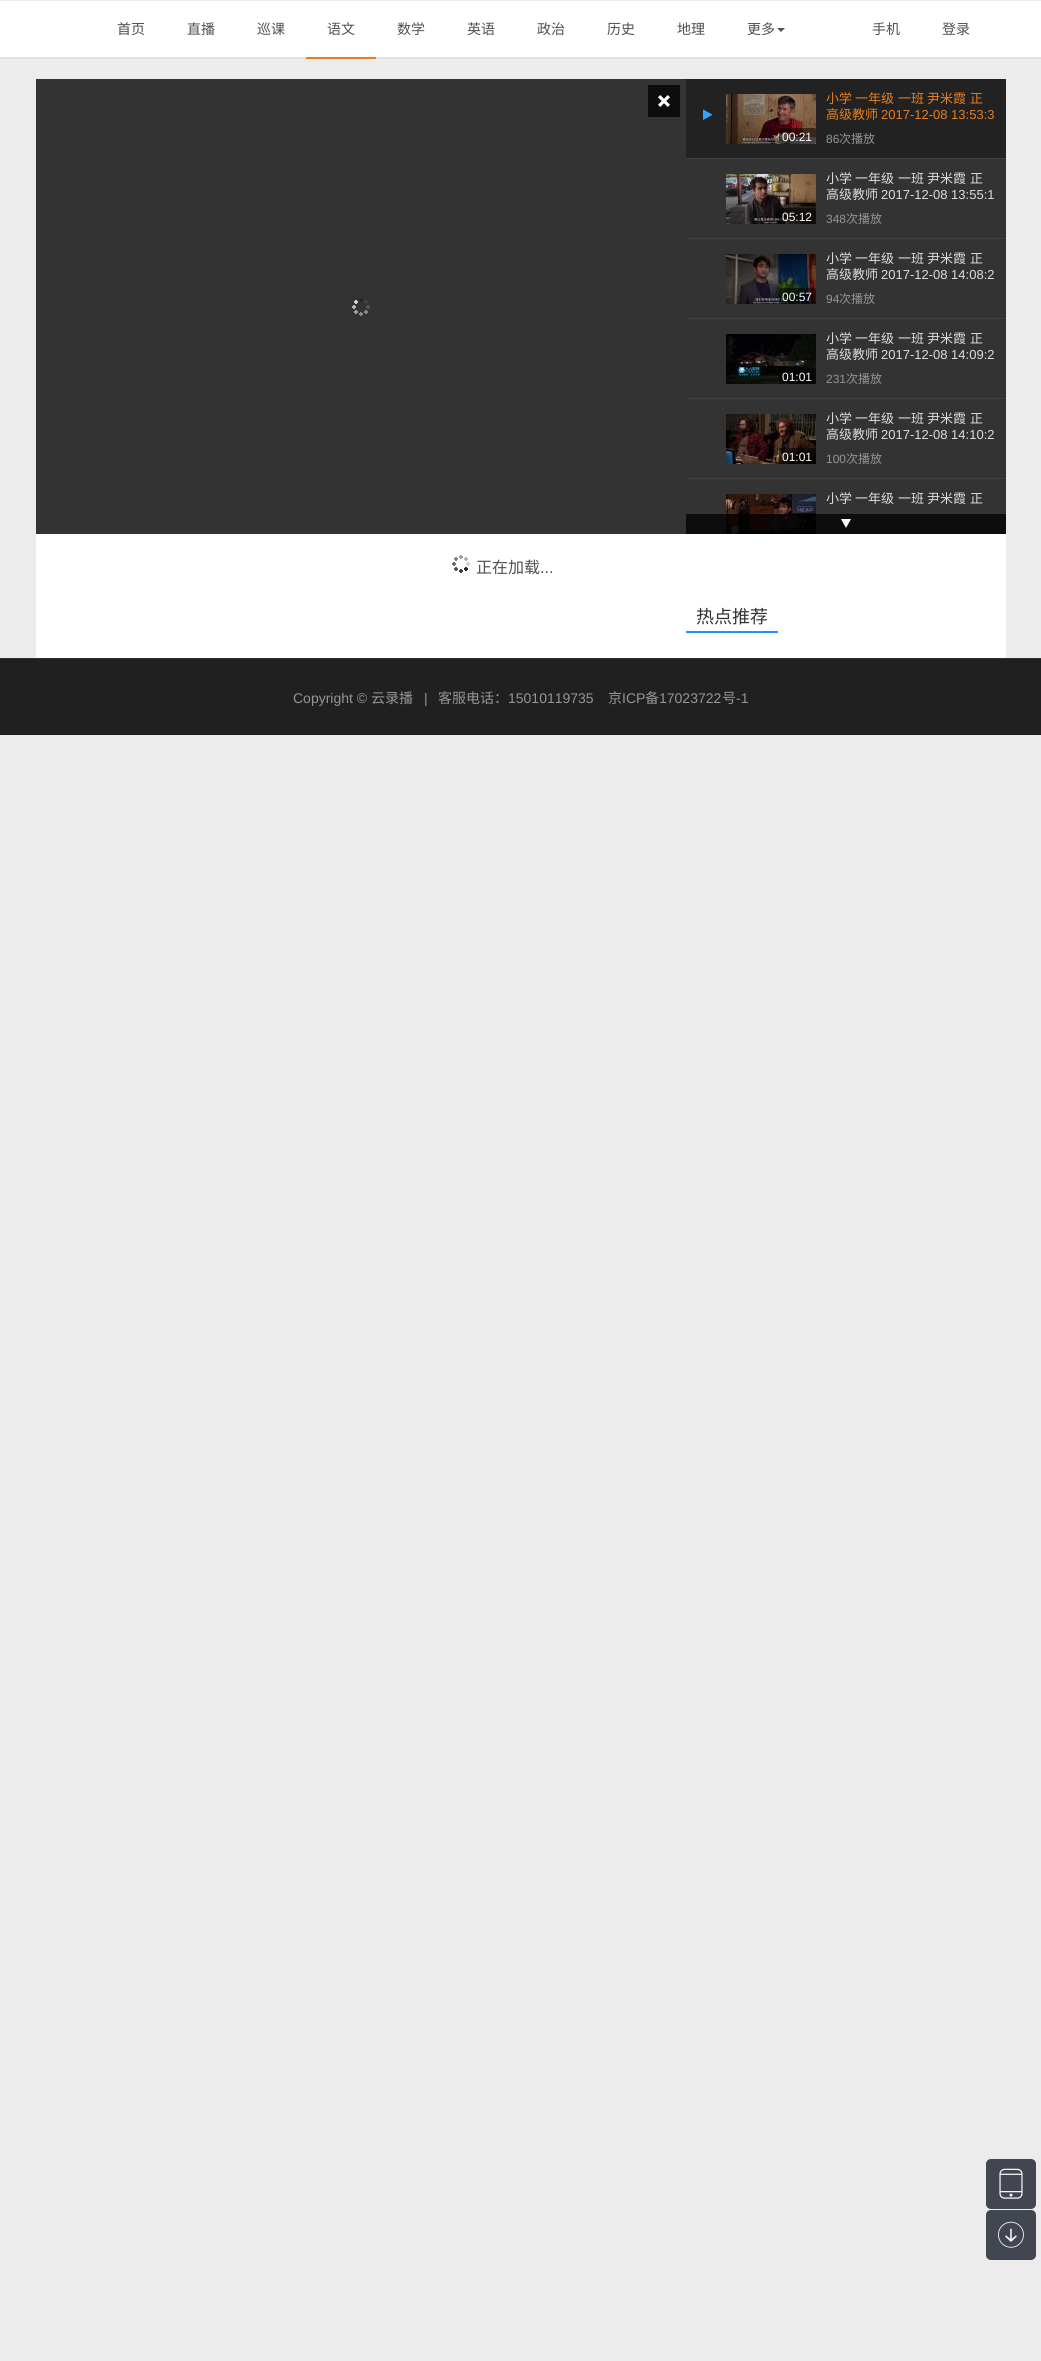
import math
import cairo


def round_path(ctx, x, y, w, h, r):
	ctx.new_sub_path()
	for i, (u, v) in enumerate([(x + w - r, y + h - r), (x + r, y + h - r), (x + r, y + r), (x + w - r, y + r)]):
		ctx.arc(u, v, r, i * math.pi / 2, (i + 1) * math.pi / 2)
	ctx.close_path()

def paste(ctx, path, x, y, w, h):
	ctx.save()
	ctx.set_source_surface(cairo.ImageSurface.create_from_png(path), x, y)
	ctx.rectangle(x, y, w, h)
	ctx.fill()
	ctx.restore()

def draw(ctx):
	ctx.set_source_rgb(0.922, 0.922, 0.922)
	ctx.paint()
	ctx.set_source_rgb(1, 1, 1)
	ctx.rectangle(0, 1, 1041, 56)
	ctx.fill()
	ctx.set_source_rgb(0.882, 0.882, 0.882)
	ctx.rectangle(0, 57, 1041, 2)
	ctx.fill()
	ctx.select_font_face('Noto Sans CJK SC')
	ctx.set_font_size(14)
	ctx.set_source_rgb(0.314, 0.314, 0.314)
	for x, y, s in [
		(117, 34, '首页'),
		(187, 34, '直播'),
		(257, 34, '巡课'),
	]:
		ctx.move_to(x, y)
		ctx.show_text(s)
	ctx.set_source_rgb(0.902, 0.494, 0.133)
	ctx.rectangle(306, 57, 70, 2)
	ctx.fill()
	ctx.set_source_rgb(0.314, 0.314, 0.314)
	for x, y, s in [
		(327, 34, '语文'),
		(397, 34, '数学'),
		(467, 34, '英语'),
		(537, 34, '政治'),
		(607, 34, '历史'),
		(677, 34, '地理'),
		(747, 34, '更多'),
	]:
		ctx.move_to(x, y)
		ctx.show_text(s)
	ctx.new_path()
	ctx.move_to(777, 28)
	ctx.line_to(785, 28)
	ctx.line_to(781, 32)
	ctx.close_path()
	ctx.fill()
	ctx.move_to(872, 34)
	ctx.show_text('手机')
	ctx.move_to(942, 34)
	ctx.show_text('登录')
	ctx.set_source_rgb(0.2, 0.2, 0.2)
	ctx.rectangle(686, 159, 320, 375)
	ctx.rectangle(36, 79, 650, 455)
	ctx.fill()
	ctx.set_source_rgb(0.051, 0.051, 0.051)
	ctx.rectangle(648, 85, 32, 32)
	ctx.fill()
	paste(ctx, 'media/1.png', 658, 95, 12, 12)
	paste(ctx, 'media/2.png', 352, 298, 18, 18)
	ctx.set_source_rgb(0.133, 0.133, 0.133)
	ctx.rectangle(686, 79, 320, 79)
	ctx.fill()
	ctx.set_source_rgb(0.251, 0.251, 0.251)
	ctx.rectangle(686, 158, 320, 1)
	ctx.fill()
	paste(ctx, 'media/3.png', 703, 109, 10, 11)
	ctx.set_font_size(13)
	ctx.set_source_rgb(0.902, 0.494, 0.133)
	for x, y, s in [
		(826, 103, '小学'),
		(855, 103, '一年级'),
		(898, 103, '一班'),
		(927, 103, '尹米霞'),
		(970, 103, '正'),
		(826, 119, '高级教师'),
	]:
		ctx.move_to(x, y)
		ctx.show_text(s)
	ctx.select_font_face('Liberation Sans')
	ctx.move_to(881, 119)
	ctx.show_text('2017-12-08 13:53:3')
	paste(ctx, 'media/4.png', 726, 94, 90, 50)
	ctx.set_source_rgba(0, 0, 0, 0.5)
	round_path(ctx, 779, 128, 37, 16, 2)
	ctx.fill()
	ctx.set_font_size(12)
	ctx.set_source_rgb(1, 1, 1)
	ctx.move_to(782, 141)
	ctx.show_text('00:21')
	ctx.set_source_rgb(0.584, 0.584, 0.584)
	ctx.move_to(826, 143)
	ctx.show_text('86')
	ctx.select_font_face('Noto Sans CJK SC')
	ctx.move_to(839, 143)
	ctx.show_text('次播放')
	ctx.set_source_rgb(0.251, 0.251, 0.251)
	ctx.rectangle(686, 238, 320, 1)
	ctx.fill()
	ctx.set_font_size(13)
	ctx.set_source_rgb(0.867, 0.867, 0.867)
	for x, y, s in [
		(826, 183, '小学'),
		(855, 183, '一年级'),
		(898, 183, '一班'),
		(927, 183, '尹米霞'),
		(970, 183, '正'),
		(826, 199, '高级教师'),
	]:
		ctx.move_to(x, y)
		ctx.show_text(s)
	ctx.select_font_face('Liberation Sans')
	ctx.move_to(881, 199)
	ctx.show_text('2017-12-08 13:55:1')
	paste(ctx, 'media/5.png', 726, 174, 90, 50)
	ctx.set_source_rgba(0, 0, 0, 0.5)
	round_path(ctx, 779, 208, 37, 16, 2)
	ctx.fill()
	ctx.set_font_size(12)
	ctx.set_source_rgb(1, 1, 1)
	ctx.move_to(782, 221)
	ctx.show_text('05:12')
	ctx.set_source_rgb(0.584, 0.584, 0.584)
	ctx.move_to(826, 223)
	ctx.show_text('348')
	ctx.select_font_face('Noto Sans CJK SC')
	ctx.move_to(846, 223)
	ctx.show_text('次播放')
	ctx.set_source_rgb(0.251, 0.251, 0.251)
	ctx.rectangle(686, 318, 320, 1)
	ctx.fill()
	ctx.set_font_size(13)
	ctx.set_source_rgb(0.867, 0.867, 0.867)
	for x, y, s in [
		(826, 263, '小学'),
		(855, 263, '一年级'),
		(898, 263, '一班'),
		(927, 263, '尹米霞'),
		(970, 263, '正'),
		(826, 279, '高级教师'),
	]:
		ctx.move_to(x, y)
		ctx.show_text(s)
	ctx.select_font_face('Liberation Sans')
	ctx.move_to(881, 279)
	ctx.show_text('2017-12-08 14:08:2')
	paste(ctx, 'media/6.png', 726, 254, 90, 50)
	ctx.set_source_rgba(0, 0, 0, 0.5)
	round_path(ctx, 779, 288, 37, 16, 2)
	ctx.fill()
	ctx.set_font_size(12)
	ctx.set_source_rgb(1, 1, 1)
	ctx.move_to(782, 301)
	ctx.show_text('00:57')
	ctx.set_source_rgb(0.584, 0.584, 0.584)
	ctx.move_to(826, 303)
	ctx.show_text('94')
	ctx.select_font_face('Noto Sans CJK SC')
	ctx.move_to(839, 303)
	ctx.show_text('次播放')
	ctx.set_source_rgb(0.251, 0.251, 0.251)
	ctx.rectangle(686, 398, 320, 1)
	ctx.fill()
	ctx.set_font_size(13)
	ctx.set_source_rgb(0.867, 0.867, 0.867)
	for x, y, s in [
		(826, 343, '小学'),
		(855, 343, '一年级'),
		(898, 343, '一班'),
		(927, 343, '尹米霞'),
		(970, 343, '正'),
		(826, 359, '高级教师'),
	]:
		ctx.move_to(x, y)
		ctx.show_text(s)
	ctx.select_font_face('Liberation Sans')
	ctx.move_to(881, 359)
	ctx.show_text('2017-12-08 14:09:2')
	paste(ctx, 'media/7.png', 726, 334, 90, 50)
	ctx.set_source_rgba(0, 0, 0, 0.5)
	round_path(ctx, 779, 368, 37, 16, 2)
	ctx.fill()
	ctx.set_font_size(12)
	ctx.set_source_rgb(1, 1, 1)
	ctx.move_to(782, 381)
	ctx.show_text('01:01')
	ctx.set_source_rgb(0.584, 0.584, 0.584)
	ctx.move_to(826, 383)
	ctx.show_text('231')
	ctx.select_font_face('Noto Sans CJK SC')
	ctx.move_to(846, 383)
	ctx.show_text('次播放')
	ctx.set_source_rgb(0.251, 0.251, 0.251)
	ctx.rectangle(686, 478, 320, 1)
	ctx.fill()
	ctx.set_font_size(13)
	ctx.set_source_rgb(0.867, 0.867, 0.867)
	for x, y, s in [
		(826, 423, '小学'),
		(855, 423, '一年级'),
		(898, 423, '一班'),
		(927, 423, '尹米霞'),
		(970, 423, '正'),
		(826, 439, '高级教师'),
	]:
		ctx.move_to(x, y)
		ctx.show_text(s)
	ctx.select_font_face('Liberation Sans')
	ctx.move_to(881, 439)
	ctx.show_text('2017-12-08 14:10:2')
	paste(ctx, 'media/8.png', 726, 414, 90, 50)
	ctx.set_source_rgba(0, 0, 0, 0.5)
	round_path(ctx, 779, 448, 37, 16, 2)
	ctx.fill()
	ctx.set_font_size(12)
	ctx.set_source_rgb(1, 1, 1)
	ctx.move_to(782, 461)
	ctx.show_text('01:01')
	ctx.set_source_rgb(0.584, 0.584, 0.584)
	ctx.move_to(826, 463)
	ctx.show_text('100')
	ctx.select_font_face('Noto Sans CJK SC')
	ctx.move_to(846, 463)
	ctx.show_text('次播放')
	paste(ctx, 'media/9.png', 726, 494, 90, 40)
	ctx.set_source_rgba(0, 0, 0, 0.5)
	ctx.new_path()
	ctx.move_to(781, 528)
	ctx.line_to(814, 528)
	ctx.curve_to(815, 528, 816, 529, 816, 530)
	ctx.line_to(816, 534)
	ctx.line_to(779, 534)
	ctx.line_to(779, 530)
	ctx.curve_to(779, 529, 780, 528, 781, 528)
	ctx.close_path()
	ctx.fill()
	ctx.set_font_size(13)
	ctx.set_source_rgb(0.867, 0.867, 0.867)
	for x, y, s in [
		(826, 503, '小学'),
		(855, 503, '一年级'),
		(898, 503, '一班'),
		(927, 503, '尹米霞'),
		(970, 503, '正'),
	]:
		ctx.move_to(x, y)
		ctx.show_text(s)
	ctx.set_source_rgba(0, 0, 0, 0.75)
	ctx.rectangle(686, 514, 320, 20)
	ctx.fill()
	paste(ctx, 'media/10.png', 841, 519, 10, 9)
	ctx.set_source_rgb(1, 1, 1)
	ctx.rectangle(36, 534, 970, 124)
	ctx.fill()
	paste(ctx, 'media/11.png', 452, 555, 18, 18)
	ctx.set_font_size(16)
	ctx.set_source_rgb(0.314, 0.314, 0.314)
	ctx.move_to(476, 573)
	ctx.show_text('正在加载')
	ctx.select_font_face('Liberation Sans')
	ctx.move_to(540, 573)
	ctx.show_text('...')
	ctx.set_source_rgb(0.149, 0.573, 1)
	ctx.rectangle(686, 631, 92, 2)
	ctx.fill()
	ctx.select_font_face('Noto Sans CJK SC')
	ctx.set_font_size(18)
	ctx.set_source_rgb(0.2, 0.2, 0.2)
	ctx.move_to(696, 623)
	ctx.show_text('热点推荐')
	ctx.set_source_rgb(0.125, 0.125, 0.125)
	ctx.rectangle(0, 659, 1041, 76)
	ctx.fill()
	ctx.set_source_rgb(0.188, 0.188, 0.188)
	ctx.rectangle(0, 658, 1041, 1)
	ctx.fill()
	ctx.select_font_face('Liberation Sans')
	ctx.set_font_size(14)
	ctx.set_source_rgb(0.584, 0.584, 0.584)
	ctx.move_to(293, 703)
	ctx.show_text('Copyright ©')
	ctx.select_font_face('Noto Sans CJK SC')
	ctx.move_to(371, 703)
	ctx.show_text('云录播')
	ctx.select_font_face('Liberation Sans')
	ctx.move_to(424, 703)
	ctx.show_text('|')
	ctx.select_font_face('Noto Sans CJK SC')
	ctx.move_to(438, 703)
	ctx.show_text('客服电话：')
	ctx.select_font_face('Liberation Sans')
	ctx.move_to(508, 703)
	ctx.show_text('15010119735')
	ctx.select_font_face('Noto Sans CJK SC')
	ctx.move_to(608, 703)
	ctx.show_text('京')
	ctx.select_font_face('Liberation Sans')
	ctx.move_to(622, 703)
	ctx.show_text('ICP')
	ctx.select_font_face('Noto Sans CJK SC')
	ctx.move_to(645, 703)
	ctx.show_text('备')
	ctx.select_font_face('Liberation Sans')
	ctx.move_to(659, 703)
	ctx.show_text('17023722')
	ctx.select_font_face('Noto Sans CJK SC')
	ctx.move_to(722, 703)
	ctx.show_text('号')
	ctx.select_font_face('Liberation Sans')
	ctx.move_to(736, 703)
	ctx.show_text('-1')
	ctx.set_source_rgb(0.259, 0.275, 0.318)
	round_path(ctx, 986, 2159, 50, 50, 5)
	ctx.fill()
	paste(ctx, 'media/12.png', 999, 2168, 24, 31)
	round_path(ctx, 986, 2210, 50, 50, 5)
	ctx.fill()
	paste(ctx, 'media/13.png', 998, 2221, 26, 27)


surface = cairo.ImageSurface(cairo.FORMAT_RGB24, 1041, 2361)
ctx = cairo.Context(surface)
options = cairo.FontOptions()
options.set_hint_metrics(cairo.HINT_METRICS_OFF)
options.set_hint_style(cairo.HINT_STYLE_NONE)
ctx.set_font_options(options)
ctx.set_miter_limit(4)
draw(ctx)
surface.write_to_png('image.png')
